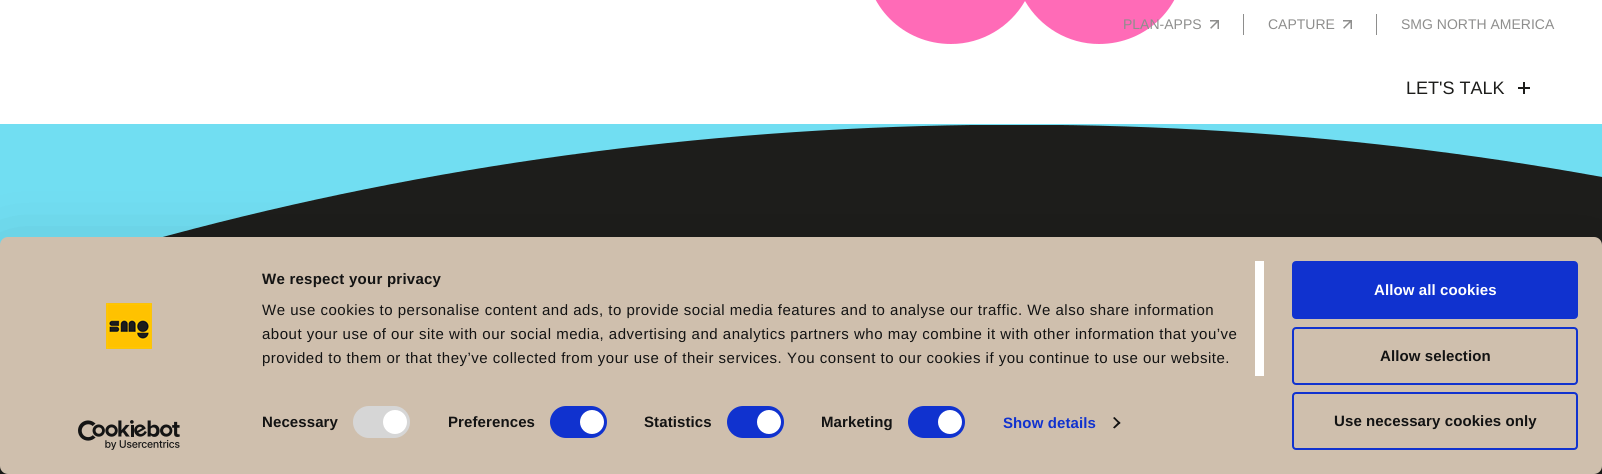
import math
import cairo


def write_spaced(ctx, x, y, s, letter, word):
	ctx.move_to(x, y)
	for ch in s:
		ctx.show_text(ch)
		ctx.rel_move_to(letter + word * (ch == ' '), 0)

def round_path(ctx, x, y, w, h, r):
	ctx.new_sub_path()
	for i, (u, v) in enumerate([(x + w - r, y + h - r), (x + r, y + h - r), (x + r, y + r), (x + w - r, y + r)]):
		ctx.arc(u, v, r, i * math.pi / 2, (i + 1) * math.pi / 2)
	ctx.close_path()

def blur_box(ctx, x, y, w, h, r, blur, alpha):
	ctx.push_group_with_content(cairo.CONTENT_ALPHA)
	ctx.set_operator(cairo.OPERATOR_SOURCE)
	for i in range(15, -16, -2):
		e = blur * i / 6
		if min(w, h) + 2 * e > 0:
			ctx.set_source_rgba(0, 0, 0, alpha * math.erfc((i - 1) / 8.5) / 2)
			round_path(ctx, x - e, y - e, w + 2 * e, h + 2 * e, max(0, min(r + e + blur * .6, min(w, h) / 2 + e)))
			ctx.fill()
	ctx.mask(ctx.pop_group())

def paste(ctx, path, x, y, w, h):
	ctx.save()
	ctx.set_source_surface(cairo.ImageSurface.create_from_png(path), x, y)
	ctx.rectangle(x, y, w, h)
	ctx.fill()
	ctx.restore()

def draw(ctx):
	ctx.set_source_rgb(1, 1, 1)
	ctx.paint()
	ctx.set_source_rgb(1, 0.42, 0.718)
	ctx.new_path()
	ctx.move_to(1183, -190)
	ctx.curve_to(1183, -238, 1145, -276, 1097, -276)
	ctx.curve_to(1066, -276, 1039, -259, 1024, -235)
	ctx.curve_to(1009, -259, 982, -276, 951, -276)
	ctx.curve_to(903, -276, 865, -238, 865, -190)
	ctx.curve_to(865, -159, 882, -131, 908, -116)
	ctx.curve_to(882, -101, 865, -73, 865, -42)
	ctx.curve_to(865, 6, 903, 44, 951, 44)
	ctx.curve_to(982, 44, 1010, 27, 1025, 1)
	ctx.curve_to(1040, 27, 1068, 44, 1099, 44)
	ctx.curve_to(1147, 44, 1185, 6, 1185, -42)
	ctx.curve_to(1185, -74, 1167, -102, 1141, -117)
	ctx.curve_to(1166, -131, 1183, -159, 1183, -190)
	ctx.fill()
	ctx.set_source_rgb(0.557, 0.557, 0.553)
	ctx.rectangle(1243, 14, 1, 21)
	ctx.fill()
	ctx.select_font_face('Liberation Sans')
	ctx.set_font_size(14)
	ctx.move_to(1123, 29)
	ctx.show_text('PLAN-APPS')
	paste(ctx, 'media/1.png', 1210, 20, 9, 9)
	ctx.rectangle(1376, 14, 1, 21)
	ctx.fill()
	ctx.move_to(1268, 29)
	ctx.show_text('CAPTURE')
	paste(ctx, 'media/1.png', 1343, 20, 9, 9)
	ctx.move_to(1401, 29)
	ctx.show_text('SMG NORTH AMERICA')
	paste(ctx, 'media/2.png', 1518, 82, 12, 12)
	ctx.set_font_size(18)
	ctx.set_source_rgb(0.114, 0.114, 0.106)
	ctx.move_to(1406, 94)
	ctx.show_text('LET\'S TALK')
	ctx.set_source_rgb(0.443, 0.871, 0.949)
	ctx.rectangle(0, 124, 1602, 121)
	ctx.fill()
	ctx.save()
	ctx.rectangle(0, 125, 1602, 161)
	ctx.clip()
	ctx.set_source_rgb(0.114, 0.114, 0.106)
	ctx.new_path()
	ctx.move_to(1602, 177)
	ctx.line_to(1602, 286)
	ctx.line_to(0, 286)
	ctx.curve_to(509, 117, 1075, 81, 1602, 177)
	ctx.close_path()
	ctx.fill()
	ctx.restore()
	ctx.set_source_rgb(0.114, 0.114, 0.106)
	ctx.rectangle(0, 466, 1602, 8)
	ctx.fill()
	ctx.set_source_rgb(0, 0, 0)
	blur_box(ctx, 0, 267, 1602, 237, 8, 35, 0.3)
	ctx.set_source_rgb(0.812, 0.749, 0.678)
	round_path(ctx, 0, 237, 1602, 237, 8)
	ctx.fill()
	paste(ctx, 'media/3.png', 106, 303, 46, 46)
	paste(ctx, 'media/4.png', 78, 420, 102, 30)
	ctx.select_font_face('Liberation Sans', cairo.FONT_SLANT_NORMAL, cairo.FONT_WEIGHT_BOLD)
	ctx.set_font_size(15)
	ctx.set_source_rgb(0.078, 0.078, 0.078)
	write_spaced(ctx, 262, 284, 'We respect your privacy', 0.25, 0)
	ctx.select_font_face('Liberation Sans')
	for x, y, s in [
		(262, 315, 'We use cookies to personalise content and ads, to provide social media features and to analyse our traffic. We also share information'),
		(262, 339, 'about your use of our site with our social media, advertising and analytics partners who may combine it with other information that you’ve'),
		(262, 363, 'provided to them or that they’ve collected from your use of their services. You consent to our cookies if you continue to use our website.'),
	]:
		write_spaced(ctx, x, y, s, 0.5, 0)
	ctx.set_source_rgb(1, 1, 1)
	ctx.rectangle(1255, 261, 9, 115)
	ctx.fill()
	ctx.select_font_face('Liberation Sans', cairo.FONT_SLANT_NORMAL, cairo.FONT_WEIGHT_BOLD)
	ctx.set_source_rgb(0.078, 0.078, 0.078)
	write_spaced(ctx, 262, 427, 'Necessary', 0.1, 0)
	ctx.set_source_rgb(0.839, 0.839, 0.839)
	round_path(ctx, 353, 406, 57, 32, 16)
	ctx.fill()
	ctx.set_source_rgb(1, 1, 1)
	ctx.arc(395, 422, 12, 0, 2 * math.pi)
	ctx.fill()
	ctx.set_source_rgb(0.078, 0.078, 0.078)
	write_spaced(ctx, 448, 427, 'Preferences', 0.1, 0)
	ctx.set_source_rgb(0.063, 0.196, 0.812)
	round_path(ctx, 550, 406, 57, 32, 16)
	ctx.fill()
	ctx.set_source_rgb(1, 1, 1)
	ctx.arc(592, 422, 12, 0, 2 * math.pi)
	ctx.fill()
	ctx.set_source_rgb(0.078, 0.078, 0.078)
	write_spaced(ctx, 644, 427, 'Statistics', 0.1, 0)
	ctx.set_source_rgb(0.063, 0.196, 0.812)
	round_path(ctx, 727, 406, 57, 32, 16)
	ctx.fill()
	ctx.set_source_rgb(1, 1, 1)
	ctx.arc(769, 422, 12, 0, 2 * math.pi)
	ctx.fill()
	ctx.set_source_rgb(0.078, 0.078, 0.078)
	write_spaced(ctx, 821, 427, 'Marketing', 0.1, 0)
	ctx.set_source_rgb(0.063, 0.196, 0.812)
	round_path(ctx, 908, 406, 57, 32, 16)
	ctx.fill()
	ctx.set_source_rgb(1, 1, 1)
	ctx.arc(950, 422, 12, 0, 2 * math.pi)
	ctx.fill()
	ctx.set_source_rgb(0.063, 0.196, 0.812)
	write_spaced(ctx, 1003, 428, 'Show details', 0.1, 0)
	ctx.set_source_rgb(0.078, 0.078, 0.078)
	ctx.new_path()
	ctx.move_to(1114.5, 417)
	ctx.line_to(1120.5, 423)
	ctx.line_to(1119, 424)
	ctx.line_to(1113, 418)
	ctx.close_path()
	ctx.fill()
	ctx.new_path()
	ctx.move_to(1119, 421.5)
	ctx.line_to(1120.5, 423)
	ctx.line_to(1114.5, 428.5)
	ctx.line_to(1113, 427.5)
	ctx.close_path()
	ctx.fill()
	ctx.set_source_rgb(0.063, 0.196, 0.812)
	round_path(ctx, 1293, 262, 284, 56, 3)
	ctx.fill_preserve()
	ctx.stroke()
	ctx.set_source_rgb(1, 1, 1)
	write_spaced(ctx, 1374, 295, 'Allow all cookies', 0.1, 0)
	round_path(ctx, 1293, 328, 284, 56, 3)
	ctx.set_source_rgb(0.063, 0.196, 0.812)
	ctx.stroke()
	ctx.set_source_rgb(0.078, 0.078, 0.078)
	write_spaced(ctx, 1380, 361, 'Allow selection', 0.1, 0)
	round_path(ctx, 1293, 393, 284, 56, 3)
	ctx.set_source_rgb(0.063, 0.196, 0.812)
	ctx.stroke()
	ctx.set_source_rgb(0.078, 0.078, 0.078)
	write_spaced(ctx, 1334, 426, 'Use necessary cookies only', 0.1, 0)


surface = cairo.ImageSurface(cairo.FORMAT_RGB24, 1602, 474)
ctx = cairo.Context(surface)
options = cairo.FontOptions()
options.set_hint_metrics(cairo.HINT_METRICS_OFF)
options.set_hint_style(cairo.HINT_STYLE_NONE)
ctx.set_font_options(options)
ctx.set_miter_limit(4)
draw(ctx)
surface.write_to_png('image.png')
